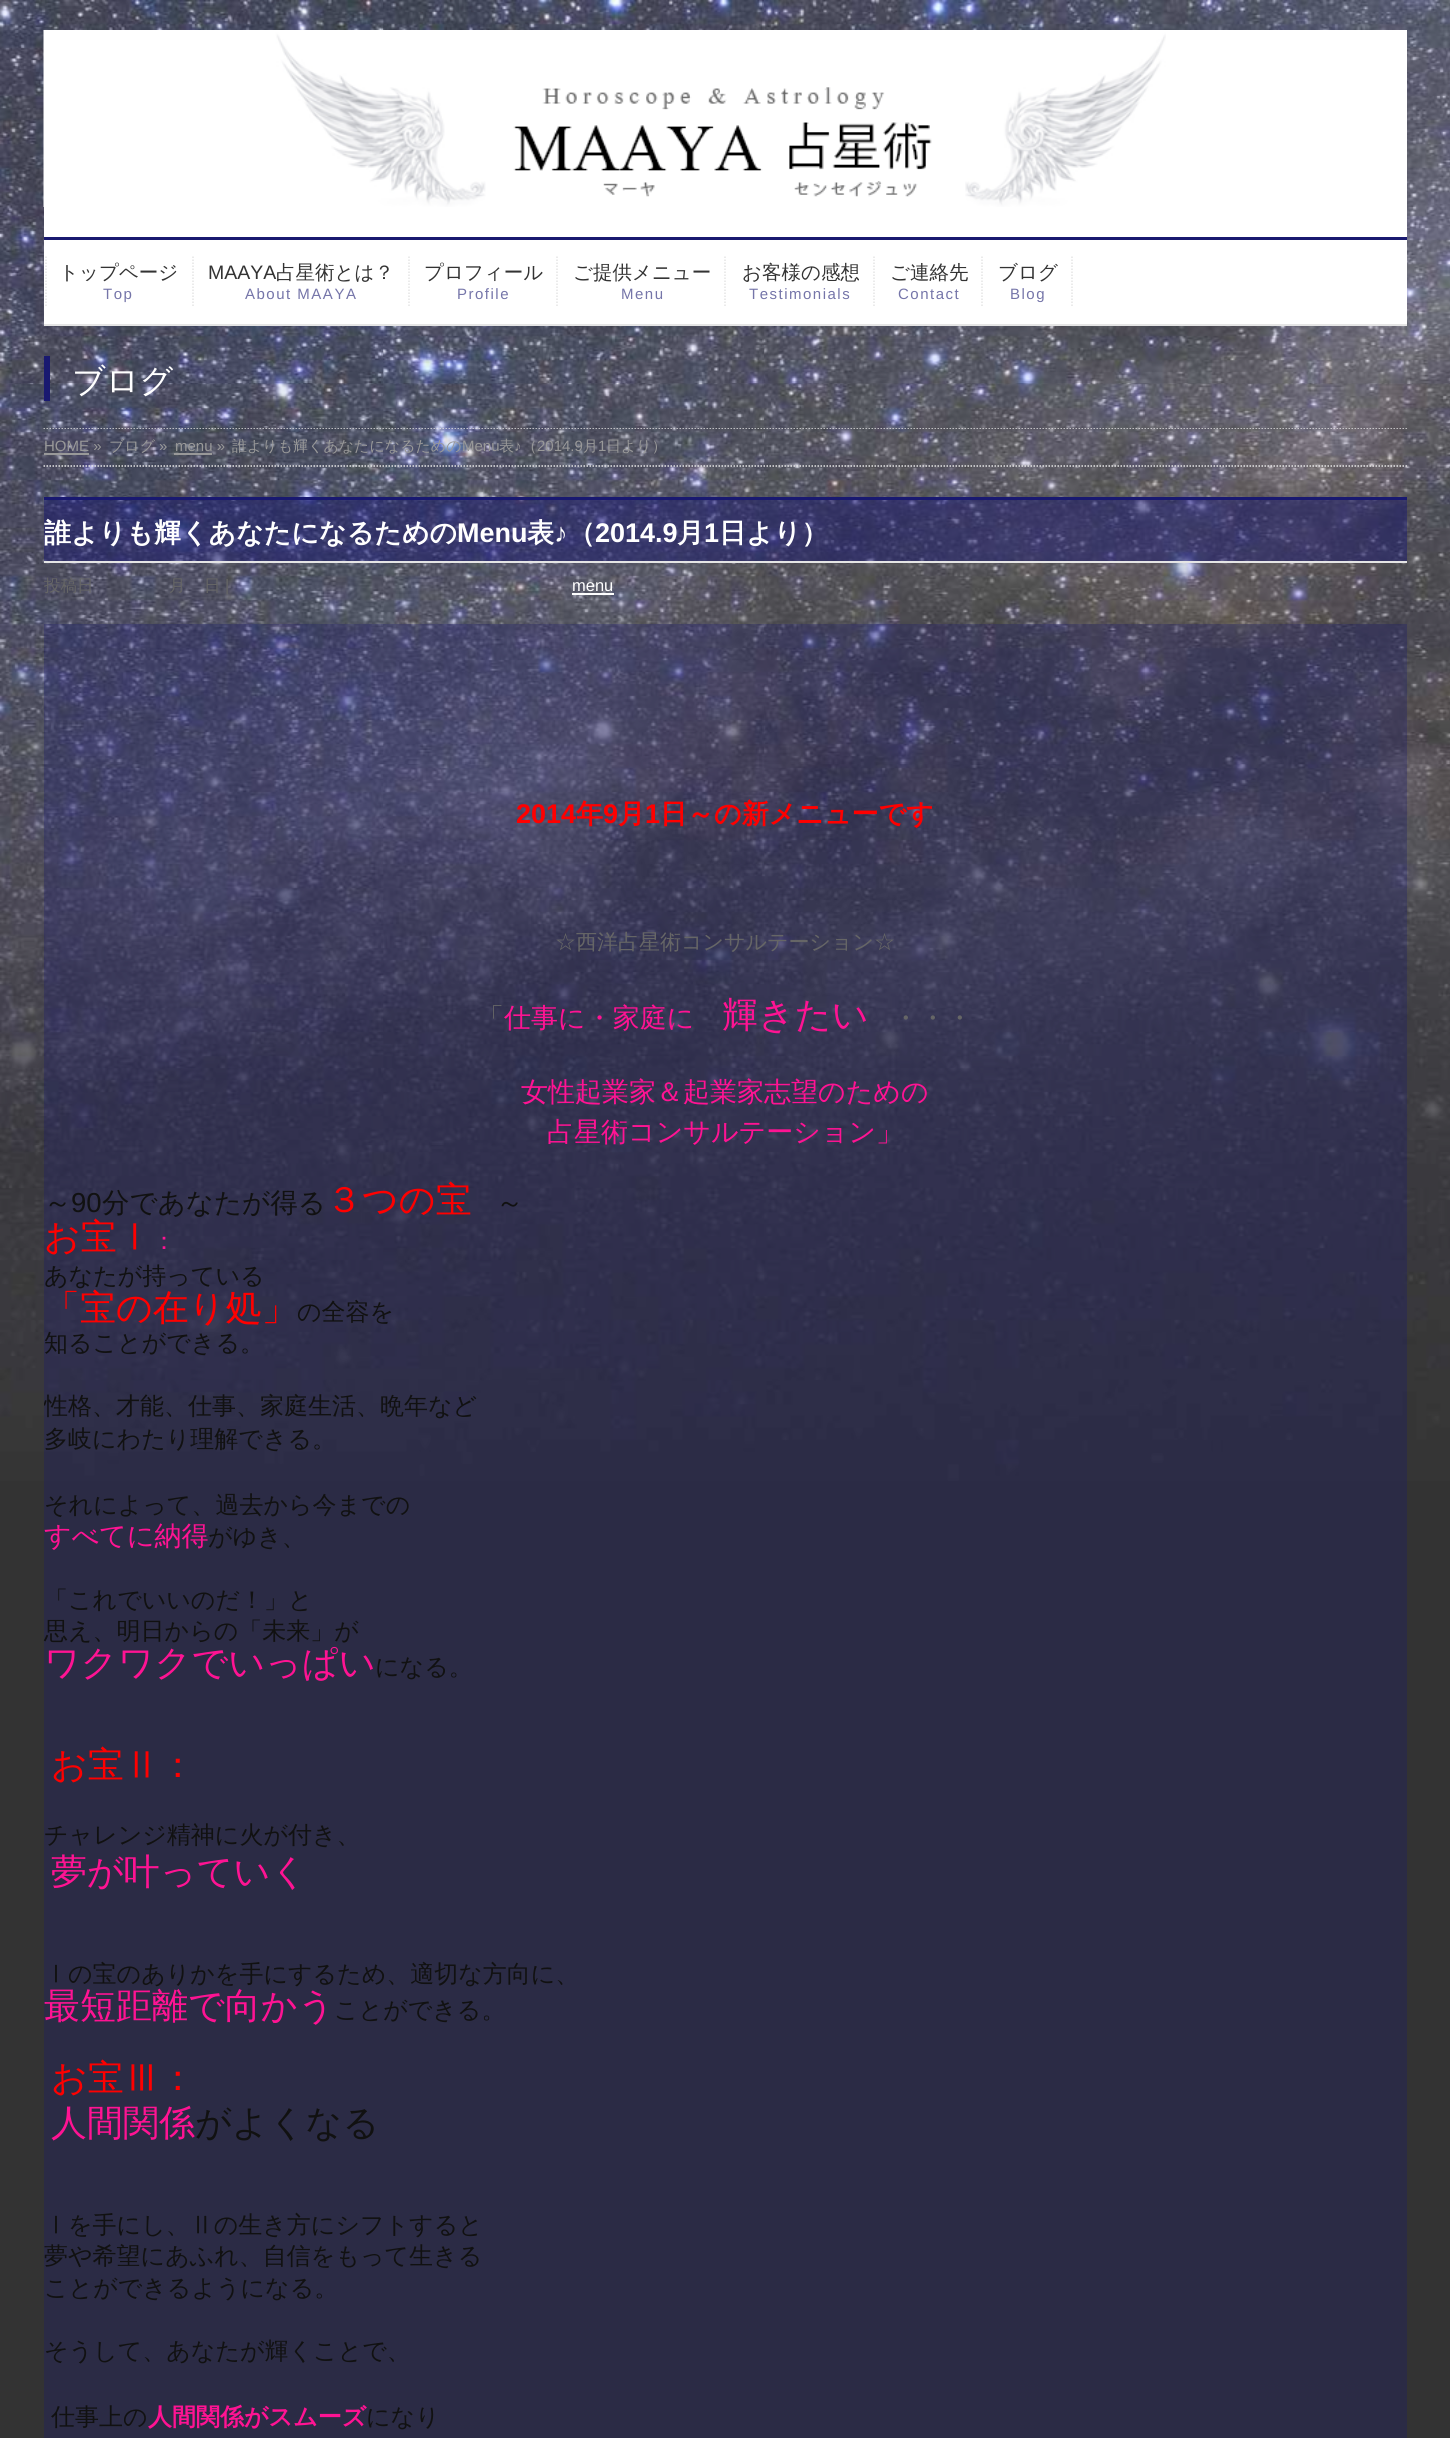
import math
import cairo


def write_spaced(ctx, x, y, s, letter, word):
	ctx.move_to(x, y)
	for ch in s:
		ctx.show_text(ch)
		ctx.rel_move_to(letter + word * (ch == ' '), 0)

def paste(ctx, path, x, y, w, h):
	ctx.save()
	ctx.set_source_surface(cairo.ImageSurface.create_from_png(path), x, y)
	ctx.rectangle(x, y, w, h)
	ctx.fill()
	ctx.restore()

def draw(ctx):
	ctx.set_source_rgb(0, 0, 0)
	ctx.paint()
	paste(ctx, 'media/1.png', 0, 0, 1450, 1481)
	ctx.set_source_rgba(1, 1, 1, 0.2)
	ctx.rectangle(0, 0, 1450, 237)
	ctx.fill()
	ctx.set_source_rgb(1, 1, 1)
	ctx.rectangle(44, 30, 1363, 207)
	ctx.fill()
	paste(ctx, 'media/2.png', 43, 30, 1123, 177)
	ctx.set_source_rgba(1, 1, 1, 0.2)
	ctx.rectangle(0, 237, 1450, 89)
	ctx.fill()
	ctx.set_source_rgb(1, 1, 1)
	ctx.rectangle(44, 240, 1363, 84)
	ctx.fill()
	ctx.set_source_rgb(0.098, 0.098, 0.439)
	ctx.rectangle(44, 237, 1363, 3)
	ctx.fill()
	ctx.set_source_rgb(0.898, 0.898, 0.898)
	ctx.rectangle(44, 324, 1363, 2)
	ctx.fill()
	ctx.new_path()
	ctx.move_to(46, 256.5)
	ctx.line_to(46, 307.5)
	ctx.set_line_width(1.5)
	ctx.set_dash([1.5, 1.5])
	ctx.stroke()
	ctx.select_font_face('WenQuanYi Zen Hei Medium')
	ctx.set_font_size(19.5)
	ctx.set_source_rgb(0.2, 0.2, 0.2)
	ctx.move_to(59, 279)
	ctx.show_text('トップページ')
	ctx.select_font_face('Liberation Sans')
	ctx.set_font_size(15)
	ctx.set_source_rgb(0.459, 0.459, 0.663)
	write_spaced(ctx, 103, 299, 'Top', 1.5, 0)
	ctx.new_path()
	ctx.move_to(193, 256.5)
	ctx.line_to(193, 307.5)
	ctx.set_source_rgb(0.898, 0.898, 0.898)
	ctx.stroke()
	ctx.set_font_size(19.5)
	ctx.set_source_rgb(0.2, 0.2, 0.2)
	ctx.move_to(208, 279)
	ctx.show_text('MAAYA')
	ctx.select_font_face('WenQuanYi Zen Hei Medium')
	ctx.move_to(276, 279)
	ctx.show_text('占星術とは？')
	ctx.select_font_face('Liberation Sans')
	ctx.set_font_size(15)
	ctx.set_source_rgb(0.459, 0.459, 0.663)
	write_spaced(ctx, 245, 299, 'About MAAYA', 1.5, 0)
	ctx.new_path()
	ctx.move_to(409, 256.5)
	ctx.line_to(409, 307.5)
	ctx.set_source_rgb(0.898, 0.898, 0.898)
	ctx.stroke()
	ctx.select_font_face('WenQuanYi Zen Hei Medium')
	ctx.set_font_size(19.5)
	ctx.set_source_rgb(0.2, 0.2, 0.2)
	ctx.move_to(424, 279)
	ctx.show_text('プロフィール')
	ctx.select_font_face('Liberation Sans')
	ctx.set_font_size(15)
	ctx.set_source_rgb(0.459, 0.459, 0.663)
	write_spaced(ctx, 457, 299, 'Profile', 1.5, 0)
	ctx.new_path()
	ctx.move_to(557, 256.5)
	ctx.line_to(557, 307.5)
	ctx.set_source_rgb(0.898, 0.898, 0.898)
	ctx.stroke()
	ctx.select_font_face('WenQuanYi Zen Hei Medium')
	ctx.set_font_size(19.5)
	ctx.set_source_rgb(0.2, 0.2, 0.2)
	ctx.move_to(573, 279)
	ctx.show_text('ご提供メニュー')
	ctx.select_font_face('Liberation Sans')
	ctx.set_font_size(15)
	ctx.set_source_rgb(0.459, 0.459, 0.663)
	write_spaced(ctx, 621, 299, 'Menu', 1.5, 0)
	ctx.new_path()
	ctx.move_to(725, 256.5)
	ctx.line_to(725, 307.5)
	ctx.set_source_rgb(0.898, 0.898, 0.898)
	ctx.stroke()
	ctx.select_font_face('WenQuanYi Zen Hei Medium')
	ctx.set_font_size(19.5)
	ctx.set_source_rgb(0.2, 0.2, 0.2)
	ctx.move_to(742, 279)
	ctx.show_text('お客様の感想')
	ctx.select_font_face('Liberation Sans')
	ctx.set_font_size(15)
	ctx.set_source_rgb(0.459, 0.459, 0.663)
	write_spaced(ctx, 749, 299, 'Testimonials', 1.5, 0)
	ctx.new_path()
	ctx.move_to(874, 256.5)
	ctx.line_to(874, 307.5)
	ctx.set_source_rgb(0.898, 0.898, 0.898)
	ctx.stroke()
	ctx.select_font_face('WenQuanYi Zen Hei Medium')
	ctx.set_font_size(19.5)
	ctx.set_source_rgb(0.2, 0.2, 0.2)
	ctx.move_to(890, 279)
	ctx.show_text('ご連絡先')
	ctx.select_font_face('Liberation Sans')
	ctx.set_font_size(15)
	ctx.set_source_rgb(0.459, 0.459, 0.663)
	write_spaced(ctx, 898, 299, 'Contact', 1.5, 0)
	ctx.new_path()
	ctx.move_to(982, 256.5)
	ctx.line_to(982, 307.5)
	ctx.set_source_rgb(0.898, 0.898, 0.898)
	ctx.stroke()
	ctx.select_font_face('WenQuanYi Zen Hei Medium')
	ctx.set_font_size(19.5)
	ctx.set_source_rgb(0.2, 0.2, 0.2)
	ctx.move_to(998, 279)
	ctx.show_text('ブログ')
	ctx.select_font_face('Liberation Sans')
	ctx.set_font_size(15)
	ctx.set_source_rgb(0.459, 0.459, 0.663)
	write_spaced(ctx, 1010, 299, 'Blog', 1.5, 0)
	ctx.new_path()
	ctx.move_to(1072, 256.5)
	ctx.line_to(1072, 307.5)
	ctx.set_source_rgb(0.898, 0.898, 0.898)
	ctx.stroke()
	ctx.set_source_rgba(1, 1, 1, 0.2)
	ctx.rectangle(0, 326, 1450, 102)
	ctx.fill()
	ctx.set_source_rgb(0.098, 0.098, 0.439)
	ctx.rectangle(44, 356, 6, 45)
	ctx.fill()
	ctx.select_font_face('WenQuanYi Zen Hei Medium')
	ctx.set_font_size(33)
	ctx.set_source_rgb(1, 1, 1)
	ctx.move_to(72, 392)
	ctx.show_text('ブログ')
	ctx.set_source_rgba(1, 1, 1, 0.2)
	ctx.rectangle(0, 428, 1450, 39)
	ctx.fill()
	ctx.save()
	ctx.rectangle(0, 428, 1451, 39)
	ctx.clip()
	ctx.new_path()
	ctx.move_to(43.5, 428)
	ctx.line_to(1407, 428)
	ctx.set_source_rgb(0.898, 0.898, 0.898)
	ctx.stroke()
	ctx.restore()
	ctx.new_path()
	ctx.move_to(43.5, 466)
	ctx.line_to(1407, 466)
	ctx.set_source_rgb(0.898, 0.898, 0.898)
	ctx.stroke()
	ctx.select_font_face('Liberation Sans')
	ctx.set_font_size(15)
	ctx.set_source_rgb(0.6, 0.6, 0.6)
	ctx.move_to(44, 451)
	ctx.show_text('HOME »')
	ctx.rectangle(44, 453, 45, 2)
	ctx.fill()
	ctx.select_font_face('WenQuanYi Zen Hei Medium')
	ctx.move_to(109, 451)
	ctx.show_text('ブログ')
	ctx.select_font_face('Liberation Sans')
	ctx.move_to(159, 451)
	ctx.show_text('»')
	ctx.move_to(175, 451)
	ctx.show_text('menu »')
	ctx.rectangle(174, 453, 38, 2)
	ctx.fill()
	ctx.select_font_face('WenQuanYi Zen Hei Medium')
	ctx.move_to(232, 451)
	ctx.show_text('誰よりも輝くあなたになるための')
	ctx.select_font_face('Liberation Sans')
	ctx.move_to(462, 451)
	ctx.show_text('Menu')
	ctx.select_font_face('WenQuanYi Zen Hei Medium')
	ctx.move_to(499, 451)
	ctx.show_text('表')
	ctx.select_font_face('Liberation Sans')
	ctx.move_to(514, 451)
	ctx.show_text('♪')
	ctx.select_font_face('WenQuanYi Zen Hei Medium')
	ctx.move_to(522, 451)
	ctx.show_text('（')
	ctx.select_font_face('Liberation Sans')
	ctx.move_to(537, 451)
	ctx.show_text('2014.9')
	ctx.select_font_face('WenQuanYi Zen Hei Medium')
	ctx.move_to(583, 451)
	ctx.show_text('月')
	ctx.select_font_face('Liberation Sans')
	ctx.move_to(598, 451)
	ctx.show_text('1')
	ctx.select_font_face('WenQuanYi Zen Hei Medium')
	ctx.move_to(606, 451)
	ctx.show_text('日より）')
	ctx.set_source_rgba(1, 1, 1, 0.2)
	ctx.rectangle(0, 467, 1450, 1971)
	ctx.fill()
	ctx.set_source_rgba(0.098, 0.098, 0.439, 0.5)
	ctx.rectangle(44, 500, 1363, 61)
	ctx.fill()
	ctx.set_source_rgb(0.098, 0.098, 0.439)
	ctx.rectangle(44, 497, 1363, 3)
	ctx.fill()
	ctx.set_source_rgb(0.898, 0.898, 0.898)
	ctx.rectangle(44, 561, 1363, 2)
	ctx.fill()
	ctx.select_font_face('WenQuanYi Zen Hei', cairo.FONT_SLANT_NORMAL, cairo.FONT_WEIGHT_BOLD)
	ctx.set_font_size(27)
	ctx.set_source_rgb(1, 1, 1)
	ctx.move_to(44, 542)
	ctx.show_text('誰よりも輝くあなたになるための')
	ctx.select_font_face('Liberation Sans', cairo.FONT_SLANT_NORMAL, cairo.FONT_WEIGHT_BOLD)
	ctx.move_to(457, 542)
	ctx.show_text('Menu')
	ctx.select_font_face('WenQuanYi Zen Hei', cairo.FONT_SLANT_NORMAL, cairo.FONT_WEIGHT_BOLD)
	ctx.move_to(527, 542)
	ctx.show_text('表')
	ctx.select_font_face('Liberation Sans', cairo.FONT_SLANT_NORMAL, cairo.FONT_WEIGHT_BOLD)
	ctx.move_to(554, 542)
	ctx.show_text('♪')
	ctx.select_font_face('WenQuanYi Zen Hei', cairo.FONT_SLANT_NORMAL, cairo.FONT_WEIGHT_BOLD)
	ctx.move_to(568, 542)
	ctx.show_text('（')
	ctx.select_font_face('Liberation Sans', cairo.FONT_SLANT_NORMAL, cairo.FONT_WEIGHT_BOLD)
	ctx.move_to(595, 542)
	ctx.show_text('2014.9')
	ctx.select_font_face('WenQuanYi Zen Hei', cairo.FONT_SLANT_NORMAL, cairo.FONT_WEIGHT_BOLD)
	ctx.move_to(677, 542)
	ctx.show_text('月')
	ctx.select_font_face('Liberation Sans', cairo.FONT_SLANT_NORMAL, cairo.FONT_WEIGHT_BOLD)
	ctx.move_to(704, 542)
	ctx.show_text('1')
	ctx.select_font_face('WenQuanYi Zen Hei', cairo.FONT_SLANT_NORMAL, cairo.FONT_WEIGHT_BOLD)
	ctx.move_to(719, 542)
	ctx.show_text('日より）')
	ctx.select_font_face('WenQuanYi Zen Hei Medium')
	ctx.set_font_size(16.5)
	ctx.set_source_rgb(0.4, 0.4, 0.4)
	for x, y, s in [
		(44, 591, '投稿日'),
		(169, 591, '月'),
		(204, 591, '日'),
	]:
		ctx.move_to(x, y)
		ctx.show_text(s)
	ctx.select_font_face('Liberation Sans')
	ctx.move_to(225, 591)
	ctx.show_text('|')
	ctx.set_source_rgb(1, 1, 1)
	ctx.move_to(572, 591)
	ctx.show_text('menu')
	ctx.rectangle(572, 593, 42, 2)
	ctx.fill()
	ctx.set_source_rgba(0.098, 0.098, 0.439, 0.3)
	ctx.rectangle(44, 624, 1363, 1814)
	ctx.fill()
	ctx.select_font_face('Liberation Sans', cairo.FONT_SLANT_NORMAL, cairo.FONT_WEIGHT_BOLD)
	ctx.set_font_size(27)
	ctx.set_source_rgb(1, 0, 0)
	ctx.move_to(516, 823)
	ctx.show_text('2014')
	ctx.select_font_face('WenQuanYi Zen Hei', cairo.FONT_SLANT_NORMAL, cairo.FONT_WEIGHT_BOLD)
	ctx.move_to(576, 823)
	ctx.show_text('年')
	ctx.select_font_face('Liberation Sans', cairo.FONT_SLANT_NORMAL, cairo.FONT_WEIGHT_BOLD)
	ctx.move_to(603, 823)
	ctx.show_text('9')
	ctx.select_font_face('WenQuanYi Zen Hei', cairo.FONT_SLANT_NORMAL, cairo.FONT_WEIGHT_BOLD)
	ctx.move_to(618, 823)
	ctx.show_text('月')
	ctx.select_font_face('Liberation Sans', cairo.FONT_SLANT_NORMAL, cairo.FONT_WEIGHT_BOLD)
	ctx.move_to(645, 823)
	ctx.show_text('1')
	ctx.select_font_face('WenQuanYi Zen Hei', cairo.FONT_SLANT_NORMAL, cairo.FONT_WEIGHT_BOLD)
	ctx.move_to(660, 823)
	ctx.show_text('日～の新メニューです')
	ctx.select_font_face('WenQuanYi Zen Hei Medium')
	ctx.set_font_size(21)
	ctx.set_source_rgb(0.4, 0.4, 0.4)
	ctx.move_to(555, 949)
	ctx.show_text('☆西洋占星術コンサルテーション☆')
	ctx.set_font_size(27)
	ctx.move_to(477, 1027)
	ctx.show_text('「')
	ctx.set_source_rgb(1, 0.078, 0.576)
	ctx.move_to(504, 1027)
	ctx.show_text('仕事に・家庭に')
	ctx.set_font_size(36)
	ctx.move_to(722, 1027)
	ctx.show_text('輝きたい')
	ctx.set_font_size(27)
	ctx.set_source_rgb(0.4, 0.4, 0.4)
	ctx.move_to(892, 1027)
	ctx.show_text('・・・')
	ctx.set_source_rgb(1, 0.078, 0.576)
	ctx.move_to(521, 1101)
	ctx.show_text('女性起業家＆起業家志望のための')
	ctx.move_to(547, 1141)
	ctx.show_text('占星術コンサルテーション」')
	ctx.set_font_size(27.5)
	ctx.set_source_rgb(0.067, 0.067, 0.067)
	ctx.move_to(44, 1212)
	ctx.show_text('～')
	ctx.select_font_face('Liberation Sans')
	ctx.move_to(71, 1212)
	ctx.show_text('90')
	ctx.select_font_face('WenQuanYi Zen Hei Medium')
	ctx.move_to(102, 1212)
	ctx.show_text('分であなたが得る')
	ctx.set_font_size(36)
	ctx.set_source_rgb(1, 0, 0)
	ctx.move_to(326, 1212)
	ctx.show_text('３つの宝')
	ctx.set_font_size(27.5)
	ctx.set_source_rgb(0.067, 0.067, 0.067)
	ctx.move_to(496, 1212)
	ctx.show_text('～')
	ctx.set_font_size(36)
	ctx.set_source_rgb(1, 0, 0)
	ctx.move_to(44, 1249)
	ctx.show_text('お宝Ⅰ')
	ctx.set_font_size(24)
	ctx.set_source_rgb(1, 0.078, 0.576)
	ctx.move_to(152, 1249)
	ctx.show_text('：')
	ctx.set_source_rgb(0.067, 0.067, 0.067)
	ctx.move_to(44, 1284)
	ctx.show_text('あなたが持っている')
	ctx.set_font_size(36)
	ctx.set_source_rgb(1, 0, 0)
	ctx.move_to(44, 1320)
	ctx.show_text('「宝の在り処」')
	ctx.set_font_size(24)
	ctx.set_source_rgb(0.067, 0.067, 0.067)
	ctx.move_to(297, 1320)
	ctx.show_text('の全容を')
	ctx.move_to(44, 1351)
	ctx.show_text('知ることができる。')
	ctx.save()
	ctx.rectangle(44, 624, 1363, 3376)
	ctx.clip()
	ctx.move_to(44, 1414)
	ctx.show_text('性格、才能、仕事、家庭生活、晩年など')
	ctx.restore()
	ctx.move_to(44, 1447)
	ctx.show_text('多岐にわたり理解できる。')
	ctx.move_to(44, 1513)
	ctx.show_text('それによって、過去から今までの')
	ctx.set_font_size(27)
	ctx.set_source_rgb(1, 0.078, 0.576)
	ctx.move_to(44, 1545)
	ctx.show_text('すべてに納得')
	ctx.set_font_size(24)
	ctx.set_source_rgb(0.067, 0.067, 0.067)
	for x, y, s in [
		(208, 1545, 'がゆき、'),
		(44, 1608, '「これでいいのだ！」と'),
		(44, 1639, '思え、明日からの「未来」が'),
	]:
		ctx.move_to(x, y)
		ctx.show_text(s)
	ctx.set_font_size(36)
	ctx.set_source_rgb(1, 0.078, 0.576)
	ctx.move_to(44, 1675)
	ctx.show_text('ワクワクでいっぱい')
	ctx.set_font_size(24)
	ctx.set_source_rgb(0.067, 0.067, 0.067)
	ctx.move_to(375, 1675)
	ctx.show_text('になる。')
	ctx.set_font_size(36)
	ctx.set_source_rgb(1, 0, 0)
	ctx.move_to(51, 1777)
	ctx.show_text('お宝Ⅱ：')
	ctx.set_font_size(24)
	ctx.set_source_rgb(0.067, 0.067, 0.067)
	ctx.move_to(44, 1843)
	ctx.show_text('チャレンジ精神に火が付き、')
	ctx.set_font_size(36)
	ctx.set_source_rgb(1, 0.078, 0.576)
	ctx.move_to(51, 1884)
	ctx.show_text('夢が叶っていく')
	ctx.set_font_size(24)
	ctx.set_source_rgb(0.067, 0.067, 0.067)
	ctx.move_to(44, 1982)
	ctx.show_text('Ⅰの宝のありかを手にするため、適切な方向に、')
	ctx.set_font_size(36)
	ctx.set_source_rgb(1, 0.078, 0.576)
	ctx.move_to(44, 2018)
	ctx.show_text('最短距離で向かう')
	ctx.set_font_size(24)
	ctx.set_source_rgb(0.067, 0.067, 0.067)
	ctx.move_to(334, 2018)
	ctx.show_text('ことができる。')
	ctx.set_font_size(36)
	ctx.set_source_rgb(1, 0, 0)
	ctx.move_to(51, 2090)
	ctx.show_text('お宝Ⅲ：')
	ctx.set_source_rgb(1, 0.078, 0.576)
	ctx.move_to(51, 2135)
	ctx.show_text('人間関係')
	ctx.set_source_rgb(0.067, 0.067, 0.067)
	ctx.move_to(195, 2135)
	ctx.show_text('がよくなる')
	ctx.set_font_size(24)
	for x, y, s in [
		(44, 2233, 'Ⅰを手にし、Ⅱの生き方にシフトすると'),
		(44, 2264, '夢や希望にあふれ、自信をもって生きる'),
		(44, 2296, 'ことができるようになる。'),
		(44, 2359, 'そうして、あなたが輝くことで、'),
		(51, 2425, '仕事上の'),
	]:
		ctx.move_to(x, y)
		ctx.show_text(s)
	ctx.select_font_face('WenQuanYi Zen Hei', cairo.FONT_SLANT_NORMAL, cairo.FONT_WEIGHT_BOLD)
	ctx.set_source_rgb(1, 0.078, 0.576)
	ctx.move_to(148, 2425)
	ctx.show_text('人間関係がスムーズ')
	ctx.select_font_face('WenQuanYi Zen Hei Medium')
	ctx.set_source_rgb(0.067, 0.067, 0.067)
	ctx.move_to(366, 2425)
	ctx.show_text('になり')


surface = cairo.ImageSurface(cairo.FORMAT_RGB24, 1450, 2438)
ctx = cairo.Context(surface)
options = cairo.FontOptions()
options.set_hint_metrics(cairo.HINT_METRICS_OFF)
options.set_hint_style(cairo.HINT_STYLE_NONE)
ctx.set_font_options(options)
ctx.set_miter_limit(4)
draw(ctx)
surface.write_to_png('image.png')
